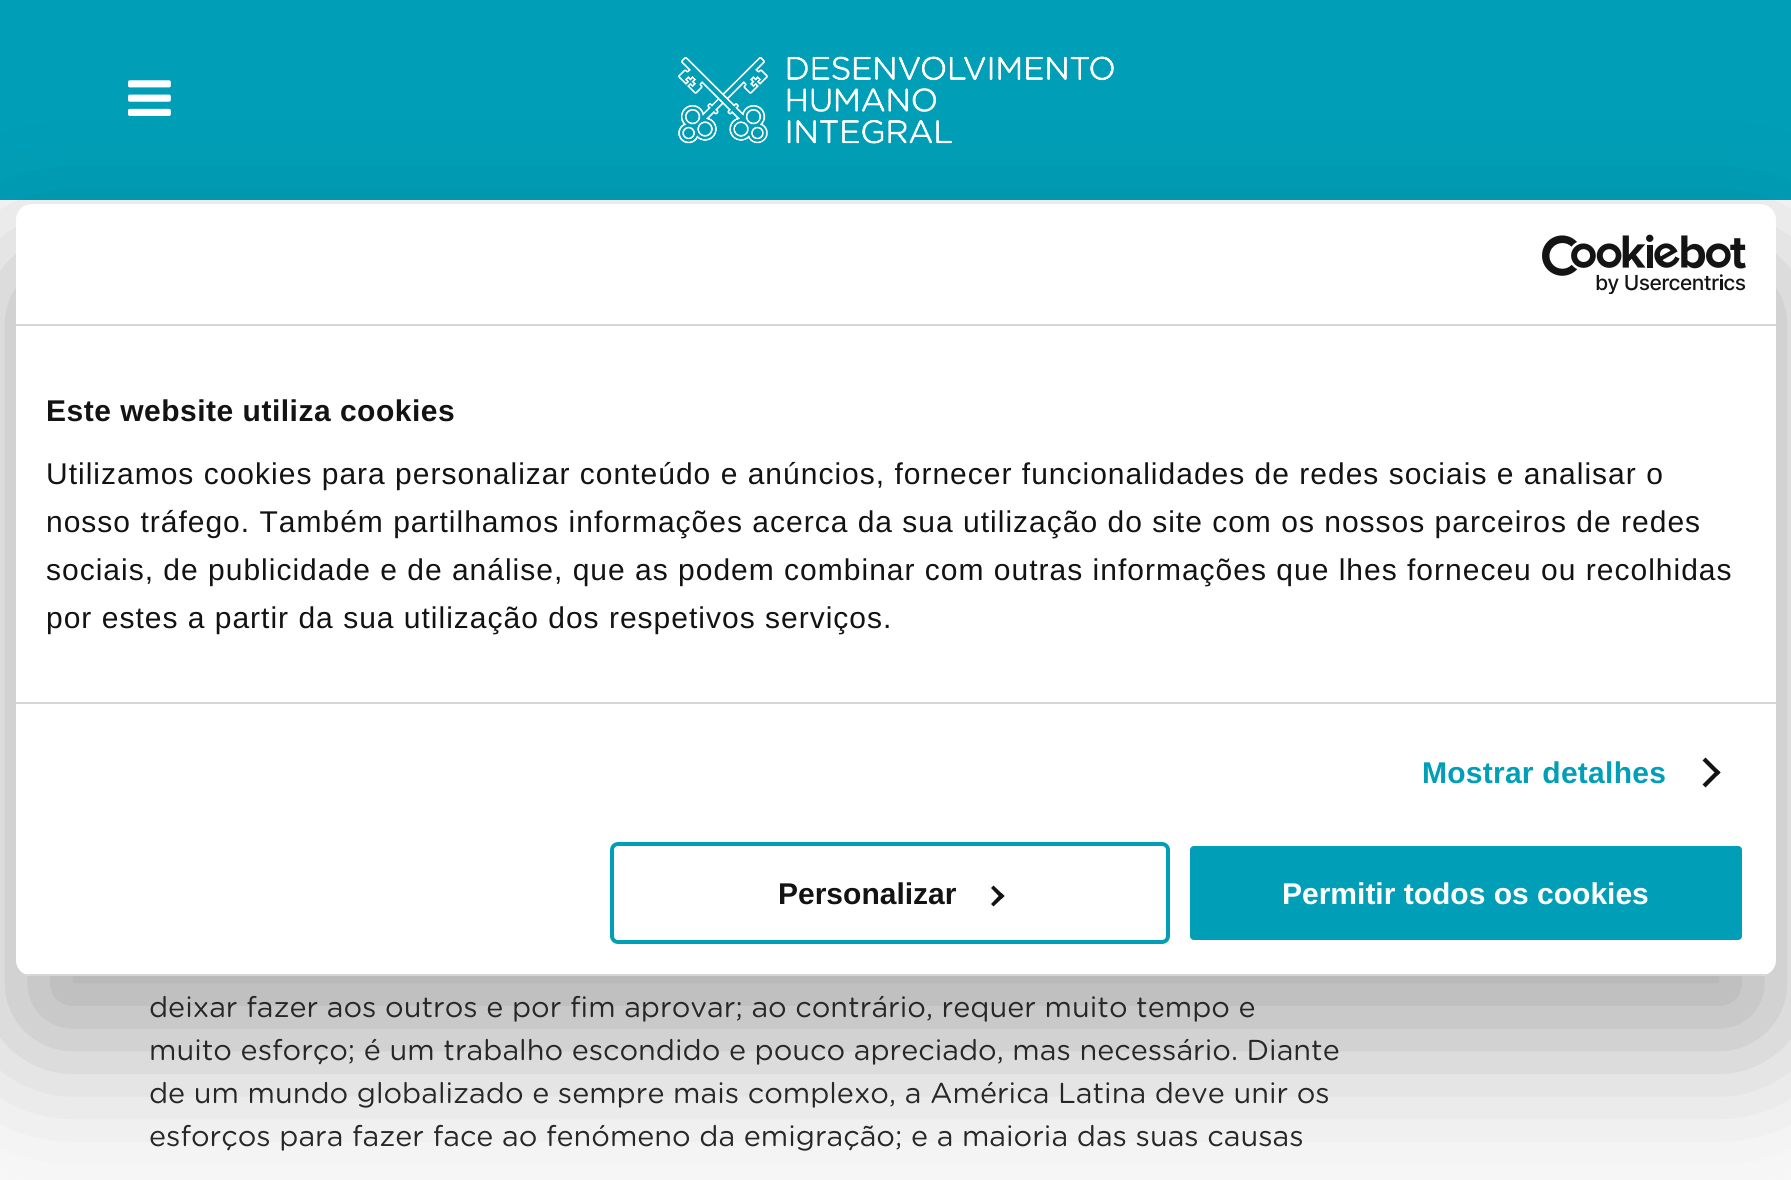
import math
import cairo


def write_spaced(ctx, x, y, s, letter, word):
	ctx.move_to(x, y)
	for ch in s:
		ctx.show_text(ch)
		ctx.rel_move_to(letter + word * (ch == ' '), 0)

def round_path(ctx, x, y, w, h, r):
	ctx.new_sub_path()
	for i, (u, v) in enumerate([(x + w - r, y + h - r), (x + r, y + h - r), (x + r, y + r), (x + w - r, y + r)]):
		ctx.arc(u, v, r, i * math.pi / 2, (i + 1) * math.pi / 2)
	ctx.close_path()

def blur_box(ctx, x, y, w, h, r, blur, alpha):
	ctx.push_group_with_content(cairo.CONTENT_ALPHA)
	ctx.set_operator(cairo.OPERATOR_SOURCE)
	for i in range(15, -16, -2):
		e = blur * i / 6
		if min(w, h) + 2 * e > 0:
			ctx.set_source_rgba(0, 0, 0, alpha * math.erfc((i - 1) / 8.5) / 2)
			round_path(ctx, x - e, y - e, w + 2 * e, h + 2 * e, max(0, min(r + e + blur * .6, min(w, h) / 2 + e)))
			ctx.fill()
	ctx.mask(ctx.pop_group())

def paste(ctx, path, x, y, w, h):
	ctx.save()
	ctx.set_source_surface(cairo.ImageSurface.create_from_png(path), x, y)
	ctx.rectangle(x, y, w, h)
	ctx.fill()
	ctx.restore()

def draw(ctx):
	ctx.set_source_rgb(0.965, 0.965, 0.965)
	ctx.paint()
	ctx.set_source_rgb(0, 0.624, 0.718)
	ctx.rectangle(0, 0, 1791, 200)
	ctx.fill()
	paste(ctx, 'media/2.png', 128, 80, 43, 36)
	paste(ctx, 'media/3.png', 678, 56, 436, 88)
	ctx.set_source_rgb(0, 0, 0)
	blur_box(ctx, 16, 268, 1760, 772, 16, 68, 0.3)
	ctx.set_source_rgb(1, 1, 1)
	round_path(ctx, 16, 204, 1760, 772, 16)
	ctx.fill()
	ctx.set_source_rgb(0.839, 0.839, 0.839)
	ctx.rectangle(16, 324, 1760, 2)
	ctx.fill()
	paste(ctx, 'media/1.png', 1542, 234, 204, 60)
	ctx.rectangle(16, 702, 1760, 2)
	ctx.fill()
	ctx.select_font_face('Liberation Sans', cairo.FONT_SLANT_NORMAL, cairo.FONT_WEIGHT_BOLD)
	ctx.set_font_size(30)
	ctx.set_source_rgb(0.078, 0.078, 0.078)
	write_spaced(ctx, 46, 421, 'Este website utiliza cookies', 0.5, 0)
	ctx.select_font_face('Liberation Sans')
	for x, y, s in [
		(46, 484, 'Utilizamos cookies para personalizar conteúdo e anúncios, fornecer funcionalidades de redes sociais e analisar o'),
		(46, 532, 'nosso tráfego. Também partilhamos informações acerca da sua utilização do site com os nossos parceiros de redes'),
		(46, 580, 'sociais, de publicidade e de análise, que as podem combinar com outras informações que lhes forneceu ou recolhidas'),
		(46, 628, 'por estes a partir da sua utilização dos respetivos serviços.'),
	]:
		write_spaced(ctx, x, y, s, 1, 0)
	ctx.select_font_face('Liberation Sans', cairo.FONT_SLANT_NORMAL, cairo.FONT_WEIGHT_BOLD)
	ctx.set_source_rgb(0, 0.624, 0.718)
	write_spaced(ctx, 1422, 783, 'Mostrar detalhes', 0.25, 0)
	ctx.set_source_rgb(0.078, 0.078, 0.078)
	ctx.new_path()
	ctx.move_to(1705.5, 757.5)
	ctx.line_to(1720.5, 772.5)
	ctx.line_to(1717.5, 775.5)
	ctx.line_to(1702.5, 760.5)
	ctx.close_path()
	ctx.fill()
	ctx.new_path()
	ctx.move_to(1717.5, 769.5)
	ctx.line_to(1720.5, 772.5)
	ctx.line_to(1705.5, 787.5)
	ctx.line_to(1702.5, 784.5)
	ctx.close_path()
	ctx.fill()
	ctx.save()
	round_path(ctx, 16, 204, 1760, 772, 16)
	ctx.clip()
	ctx.set_source_rgb(0.839, 0.839, 0.839)
	ctx.rectangle(16, 974, 1760, 2)
	ctx.fill()
	ctx.restore()
	round_path(ctx, 612, 844, 556, 98, 6)
	ctx.set_source_rgb(0, 0.624, 0.718)
	ctx.set_line_width(4)
	ctx.stroke()
	ctx.set_source_rgb(0.078, 0.078, 0.078)
	ctx.move_to(778, 904)
	ctx.show_text('Personalizar')
	ctx.new_path()
	ctx.move_to(993.5, 885.5)
	ctx.line_to(1004.5, 896)
	ctx.line_to(1001.5, 899)
	ctx.line_to(991, 888)
	ctx.close_path()
	ctx.fill()
	ctx.new_path()
	ctx.move_to(1001.5, 893)
	ctx.line_to(1004.5, 896)
	ctx.line_to(993.5, 906.5)
	ctx.line_to(991, 904)
	ctx.close_path()
	ctx.fill()
	ctx.set_source_rgb(0, 0.624, 0.718)
	round_path(ctx, 1188, 844, 556, 98, 6)
	ctx.fill_preserve()
	ctx.set_source_rgb(1, 1, 1)
	ctx.stroke()
	ctx.move_to(1282, 904)
	ctx.show_text('Permitir todos os cookies')
	ctx.select_font_face('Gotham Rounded')
	ctx.set_font_size(28.8)
	ctx.set_source_rgb(0.153, 0.153, 0.153)
	for x, y, s in [
		(149, 1017, 'deixar fazer aos outros e por fim aprovar; ao contrário, requer muito tempo e'),
		(149, 1060, 'muito esforço; é um trabalho escondido e pouco apreciado, mas necessário. Diante'),
		(149, 1103, 'de um mundo globalizado e sempre mais complexo, a América Latina deve unir os'),
		(149, 1146, 'esforços para fazer face ao fenómeno da emigração; e a maioria das suas causas'),
	]:
		ctx.move_to(x, y)
		ctx.show_text(s)


surface = cairo.ImageSurface(cairo.FORMAT_RGB24, 1791, 1180)
ctx = cairo.Context(surface)
options = cairo.FontOptions()
options.set_hint_metrics(cairo.HINT_METRICS_OFF)
options.set_hint_style(cairo.HINT_STYLE_NONE)
ctx.set_font_options(options)
ctx.set_miter_limit(4)
draw(ctx)
surface.write_to_png('image.png')
